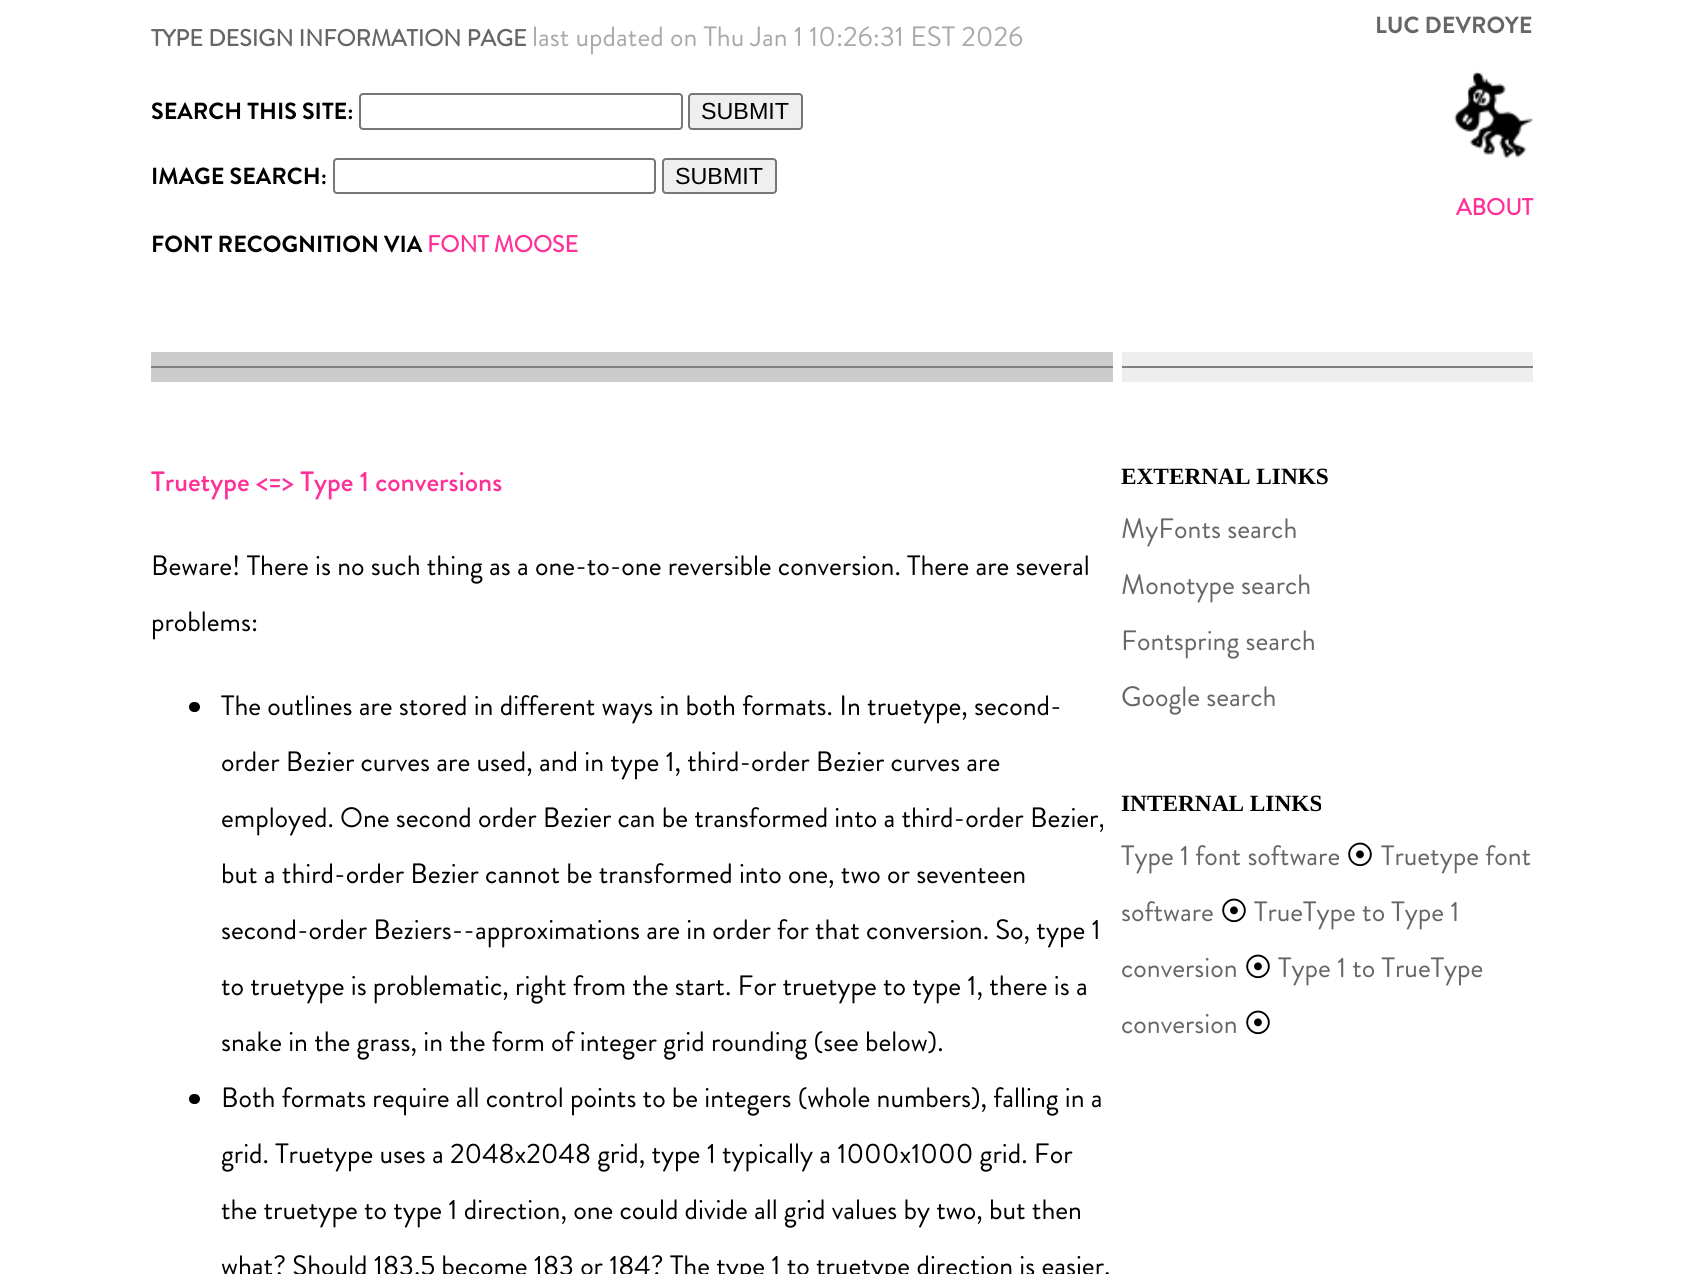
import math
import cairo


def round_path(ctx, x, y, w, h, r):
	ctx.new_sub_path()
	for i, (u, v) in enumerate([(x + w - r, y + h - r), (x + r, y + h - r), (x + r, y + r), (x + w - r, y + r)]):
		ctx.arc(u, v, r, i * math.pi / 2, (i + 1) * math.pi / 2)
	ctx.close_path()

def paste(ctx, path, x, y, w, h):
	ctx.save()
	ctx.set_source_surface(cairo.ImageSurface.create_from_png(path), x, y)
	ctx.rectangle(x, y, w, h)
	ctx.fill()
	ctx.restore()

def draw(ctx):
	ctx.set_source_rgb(1, 1, 1)
	ctx.paint()
	ctx.select_font_face('Brandon Grotesque', cairo.FONT_SLANT_NORMAL, cairo.FONT_WEIGHT_BOLD)
	ctx.set_font_size(23.3)
	ctx.set_source_rgb(0.4, 0.4, 0.4)
	ctx.move_to(151, 46)
	ctx.show_text('TYPE DESIGN INFORMATION PAGE')
	ctx.select_font_face('Brandon Grotesque')
	ctx.set_font_size(28)
	ctx.set_source_rgb(0.667, 0.667, 0.667)
	ctx.move_to(532, 46)
	ctx.show_text('last updated on Thu Jan 1 10:26:31 EST 2026')
	ctx.select_font_face('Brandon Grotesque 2', cairo.FONT_SLANT_NORMAL, cairo.FONT_WEIGHT_BOLD)
	ctx.set_font_size(23.3)
	ctx.set_source_rgb(0, 0, 0)
	ctx.move_to(151, 119)
	ctx.show_text('SEARCH THIS SITE:')
	round_path(ctx, 360, 94, 322, 35, 3)
	ctx.set_source_rgb(0.463, 0.463, 0.463)
	ctx.stroke()
	ctx.set_source_rgb(0.937, 0.937, 0.937)
	round_path(ctx, 689, 94, 113, 35, 3)
	ctx.fill_preserve()
	ctx.set_source_rgb(0.463, 0.463, 0.463)
	ctx.stroke()
	ctx.select_font_face('Liberation Sans')
	ctx.set_source_rgb(0, 0, 0)
	ctx.move_to(701, 119)
	ctx.show_text('SUBMIT')
	ctx.select_font_face('Brandon Grotesque 2', cairo.FONT_SLANT_NORMAL, cairo.FONT_WEIGHT_BOLD)
	ctx.move_to(151, 184)
	ctx.show_text('IMAGE SEARCH:')
	round_path(ctx, 334, 159, 321, 34, 3)
	ctx.set_source_rgb(0.463, 0.463, 0.463)
	ctx.stroke()
	ctx.set_source_rgb(0.937, 0.937, 0.937)
	round_path(ctx, 663, 159, 113, 34, 3)
	ctx.fill_preserve()
	ctx.set_source_rgb(0.463, 0.463, 0.463)
	ctx.stroke()
	ctx.select_font_face('Liberation Sans')
	ctx.set_source_rgb(0, 0, 0)
	ctx.move_to(675, 184)
	ctx.show_text('SUBMIT')
	ctx.select_font_face('Brandon Grotesque 2', cairo.FONT_SLANT_NORMAL, cairo.FONT_WEIGHT_BOLD)
	ctx.move_to(151, 252)
	ctx.show_text('FONT RECOGNITION VIA')
	ctx.select_font_face('Brandon Grotesque', cairo.FONT_SLANT_NORMAL, cairo.FONT_WEIGHT_BOLD)
	ctx.set_source_rgb(1, 0.188, 0.592)
	ctx.move_to(427, 252)
	ctx.show_text('FONT MOOSE')
	ctx.select_font_face('Brandon Grotesque 2', cairo.FONT_SLANT_NORMAL, cairo.FONT_WEIGHT_BOLD)
	ctx.set_source_rgb(0.4, 0.4, 0.4)
	ctx.move_to(1375, 33)
	ctx.show_text('LUC DEVROYE')
	paste(ctx, 'media/1.png', 1454, 71, 79, 87)
	ctx.select_font_face('Brandon Grotesque', cairo.FONT_SLANT_NORMAL, cairo.FONT_WEIGHT_BOLD)
	ctx.set_source_rgb(1, 0.188, 0.592)
	ctx.move_to(1456, 215)
	ctx.show_text('ABOUT')
	ctx.set_source_rgb(0.8, 0.8, 0.8)
	ctx.rectangle(151, 352, 962, 30)
	ctx.fill()
	ctx.set_source_rgb(0.502, 0.502, 0.502)
	ctx.rectangle(151, 366, 962, 2)
	ctx.fill()
	ctx.set_source_rgb(0.933, 0.933, 0.933)
	ctx.rectangle(1122, 352, 411, 30)
	ctx.fill()
	ctx.set_source_rgb(0.502, 0.502, 0.502)
	ctx.rectangle(1122, 366, 411, 2)
	ctx.fill()
	ctx.select_font_face('Brandon Grotesque Medium')
	ctx.set_font_size(28)
	ctx.set_source_rgb(1, 0.188, 0.592)
	ctx.move_to(151, 491)
	ctx.show_text('Truetype <=> Type 1 conversions')
	ctx.select_font_face('Brandon Grotesque')
	ctx.set_source_rgb(0, 0, 0)
	ctx.move_to(151, 575)
	ctx.show_text('Beware! There is no such thing as a one-to-one reversible conversion. There are several')
	ctx.move_to(151, 631)
	ctx.show_text('problems:')
	round_path(ctx, 189, 702, 11, 10, 5)
	ctx.fill()
	for x, y, s in [
		(221, 715, 'The outlines are stored in different ways in both formats. In truetype, second-'),
		(221, 771, 'order Bezier curves are used, and in type 1, third-order Bezier curves are'),
		(221, 827, 'employed. One second order Bezier can be transformed into a third-order Bezier,'),
		(221, 883, 'but a third-order Bezier cannot be transformed into one, two or seventeen'),
		(221, 939, 'second-order Beziers--approximations are in order for that conversion. So, type 1'),
		(221, 995, 'to truetype is problematic, right from the start. For truetype to type 1, there is a'),
		(221, 1051, 'snake in the grass, in the form of integer grid rounding (see below).'),
	]:
		ctx.move_to(x, y)
		ctx.show_text(s)
	round_path(ctx, 189, 1094, 11, 10, 5)
	ctx.fill()
	for x, y, s in [
		(221, 1107, 'Both formats require all control points to be integers (whole numbers), falling in a'),
		(221, 1163, 'grid. Truetype uses a 2048x2048 grid, type 1 typically a 1000x1000 grid. For'),
		(221, 1219, 'the truetype to type 1 direction, one could divide all grid values by two, but then'),
		(221, 1275, 'what? Should 183.5 become 183 or 184? The type 1 to truetype direction is easier,'),
	]:
		ctx.move_to(x, y)
		ctx.show_text(s)
	ctx.select_font_face('Liberation Serif', cairo.FONT_SLANT_NORMAL, cairo.FONT_WEIGHT_BOLD)
	ctx.set_font_size(23.3)
	ctx.move_to(1121, 484)
	ctx.show_text('EXTERNAL LINKS')
	ctx.select_font_face('Brandon Grotesque')
	ctx.set_font_size(28)
	ctx.set_source_rgb(0.4, 0.4, 0.4)
	for x, y, s in [
		(1121, 538, 'MyFonts search'),
		(1121, 594, 'Monotype search'),
		(1121, 650, 'Fontspring search'),
		(1121, 706, 'Google search'),
	]:
		ctx.move_to(x, y)
		ctx.show_text(s)
	ctx.select_font_face('Liberation Serif', cairo.FONT_SLANT_NORMAL, cairo.FONT_WEIGHT_BOLD)
	ctx.set_font_size(23.3)
	ctx.set_source_rgb(0, 0, 0)
	ctx.move_to(1121, 811)
	ctx.show_text('INTERNAL LINKS')
	ctx.select_font_face('Brandon Grotesque')
	ctx.set_font_size(28)
	ctx.set_source_rgb(0.4, 0.4, 0.4)
	ctx.move_to(1121, 865)
	ctx.show_text('Type 1 font software')
	ctx.select_font_face('IPAGothic')
	ctx.set_source_rgb(0, 0, 0)
	ctx.move_to(1346, 865)
	ctx.show_text('⦿')
	ctx.select_font_face('Brandon Grotesque')
	ctx.set_source_rgb(0.4, 0.4, 0.4)
	ctx.move_to(1381, 865)
	ctx.show_text('Truetype font')
	ctx.move_to(1121, 921)
	ctx.show_text('software')
	ctx.select_font_face('IPAGothic')
	ctx.set_source_rgb(0, 0, 0)
	ctx.move_to(1220, 921)
	ctx.show_text('⦿')
	ctx.select_font_face('Brandon Grotesque')
	ctx.set_source_rgb(0.4, 0.4, 0.4)
	ctx.move_to(1254, 921)
	ctx.show_text('TrueType to Type 1')
	ctx.move_to(1121, 977)
	ctx.show_text('conversion')
	ctx.select_font_face('IPAGothic')
	ctx.set_source_rgb(0, 0, 0)
	ctx.move_to(1244, 977)
	ctx.show_text('⦿')
	ctx.select_font_face('Brandon Grotesque')
	ctx.set_source_rgb(0.4, 0.4, 0.4)
	ctx.move_to(1278, 977)
	ctx.show_text('Type 1 to TrueType')
	ctx.move_to(1121, 1033)
	ctx.show_text('conversion')
	ctx.select_font_face('IPAGothic')
	ctx.set_source_rgb(0, 0, 0)
	ctx.move_to(1244, 1033)
	ctx.show_text('⦿')


surface = cairo.ImageSurface(cairo.FORMAT_RGB24, 1683, 1274)
ctx = cairo.Context(surface)
options = cairo.FontOptions()
options.set_hint_metrics(cairo.HINT_METRICS_OFF)
options.set_hint_style(cairo.HINT_STYLE_NONE)
ctx.set_font_options(options)
ctx.set_miter_limit(4)
draw(ctx)
surface.write_to_png('image.png')
